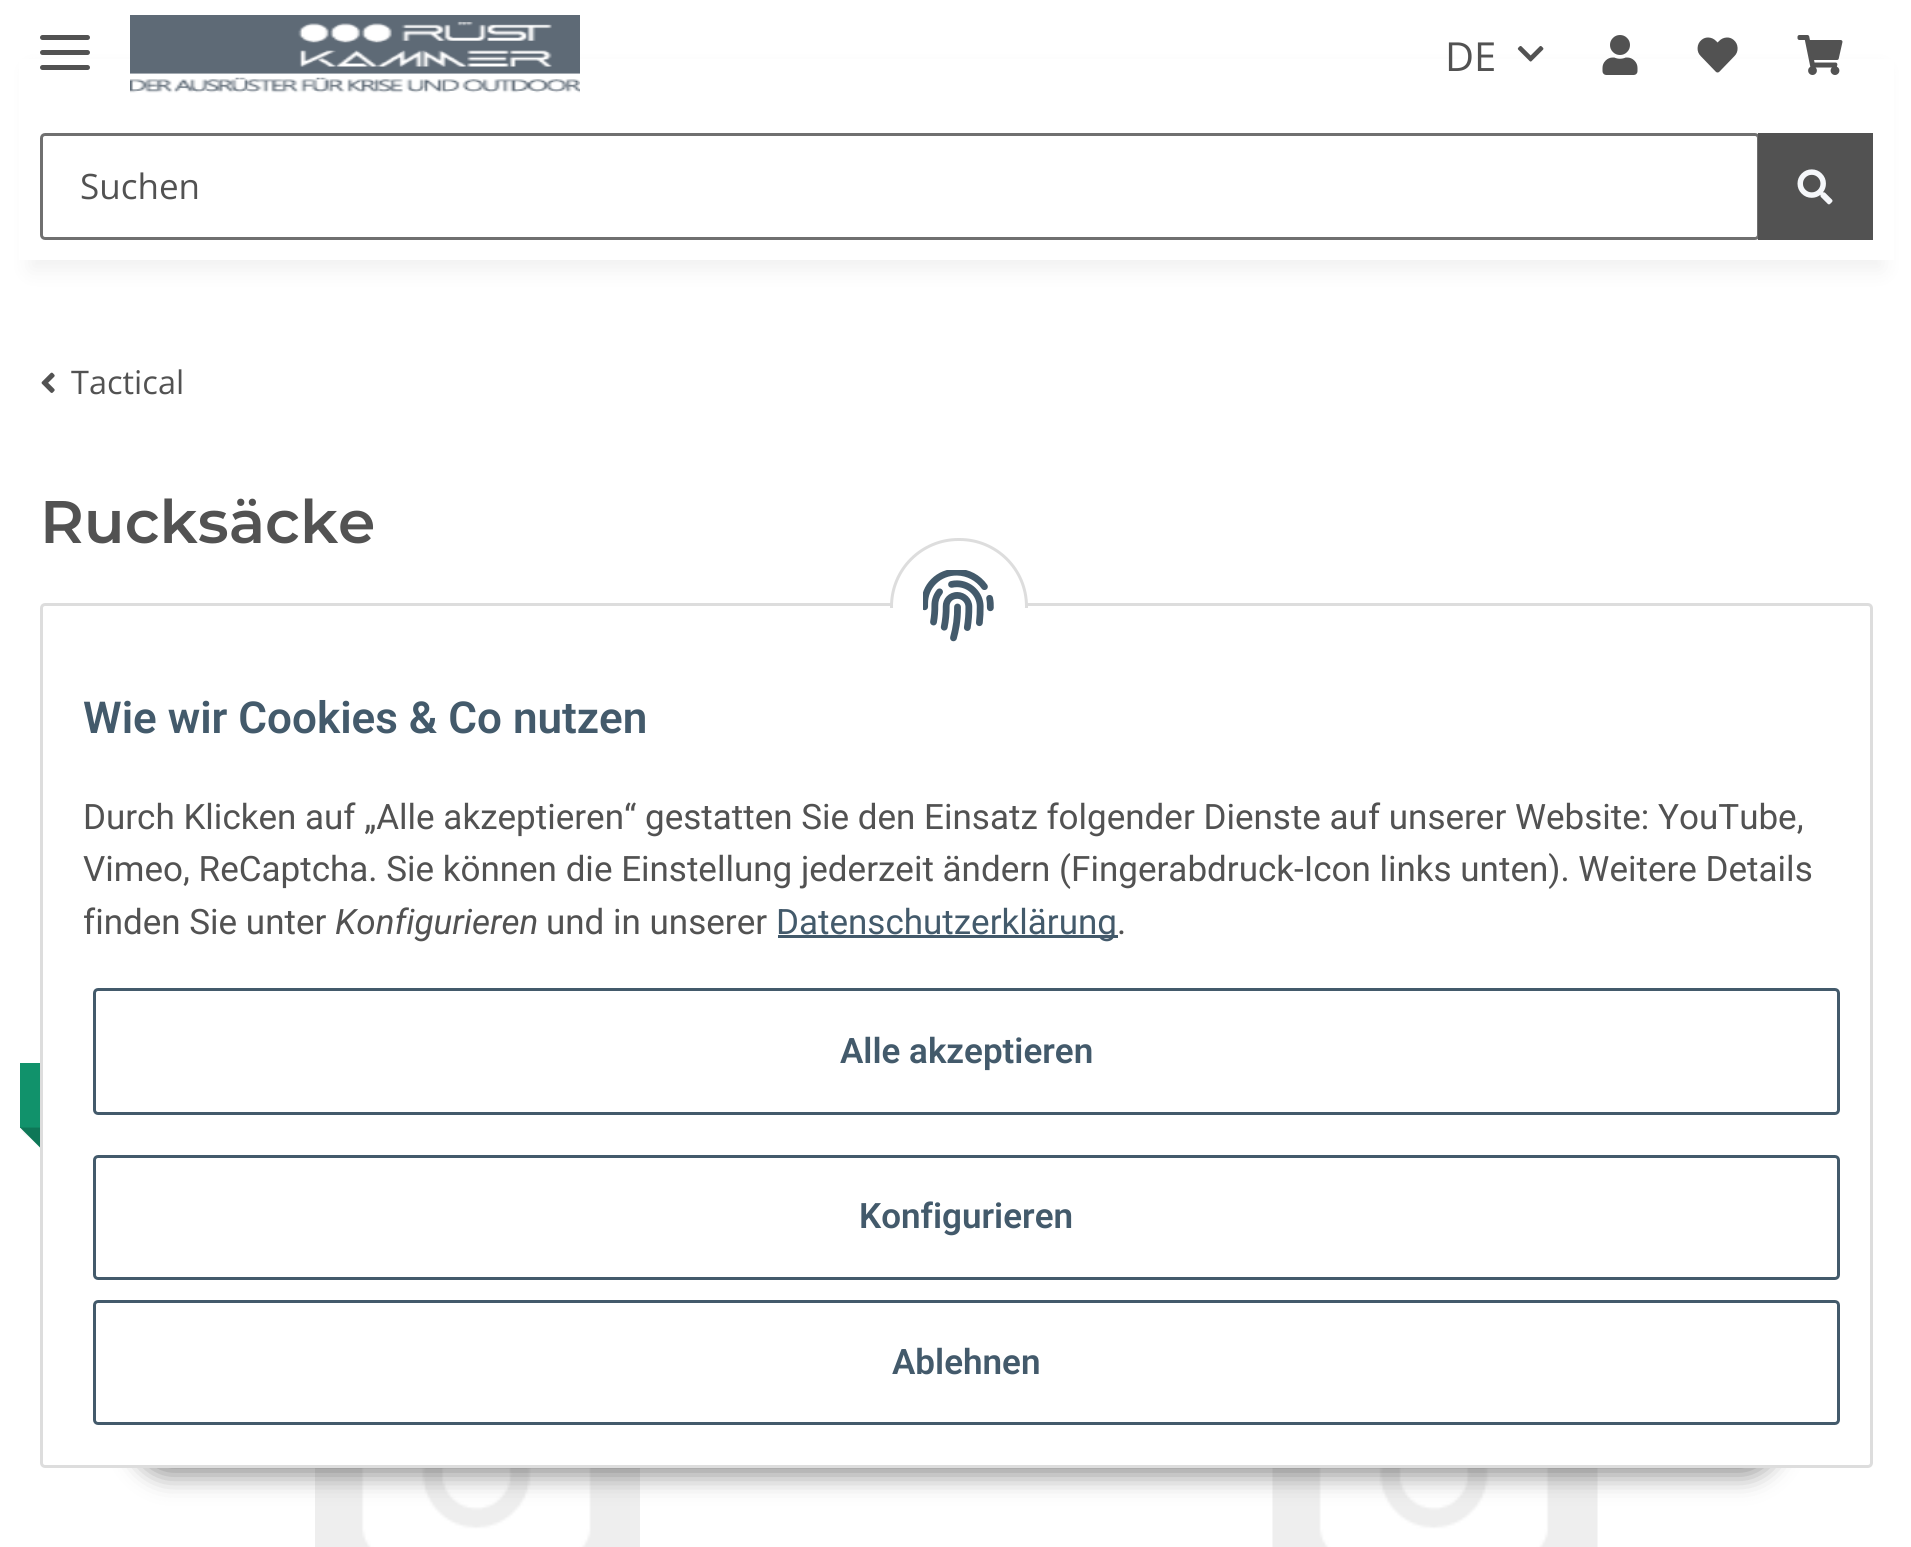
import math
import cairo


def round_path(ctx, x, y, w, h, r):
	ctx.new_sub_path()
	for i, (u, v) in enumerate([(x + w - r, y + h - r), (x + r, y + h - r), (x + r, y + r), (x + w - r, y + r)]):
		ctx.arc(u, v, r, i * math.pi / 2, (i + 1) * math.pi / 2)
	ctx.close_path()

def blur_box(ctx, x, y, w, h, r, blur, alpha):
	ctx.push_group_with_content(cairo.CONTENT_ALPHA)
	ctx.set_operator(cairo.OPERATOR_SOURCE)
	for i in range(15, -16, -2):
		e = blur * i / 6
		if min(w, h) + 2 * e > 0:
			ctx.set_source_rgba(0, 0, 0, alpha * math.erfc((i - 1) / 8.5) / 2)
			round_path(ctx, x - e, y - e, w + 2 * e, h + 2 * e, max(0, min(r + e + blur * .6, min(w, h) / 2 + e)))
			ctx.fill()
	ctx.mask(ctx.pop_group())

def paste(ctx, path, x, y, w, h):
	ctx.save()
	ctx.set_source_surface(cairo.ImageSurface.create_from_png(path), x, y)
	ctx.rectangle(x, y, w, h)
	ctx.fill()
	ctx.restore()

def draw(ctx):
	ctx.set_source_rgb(1, 1, 1)
	ctx.paint()
	ctx.set_source_rgb(0, 0, 0)
	blur_box(ctx, 30, 70, 1853, 200, 0, 11, 0.06)
	ctx.set_source_rgb(1, 1, 1)
	ctx.rectangle(19, 59, 1875, 201)
	ctx.fill()
	ctx.set_source_rgb(0.322, 0.322, 0.322)
	round_path(ctx, 40, 50, 50, 5, 2.5)
	ctx.fill()
	round_path(ctx, 40, 35, 50, 5, 2.5)
	ctx.fill()
	round_path(ctx, 40, 65, 50, 5, 2.5)
	ctx.fill()
	paste(ctx, 'media/1.png', 130, 15, 450, 78)
	ctx.select_font_face('Open Sans')
	ctx.set_font_size(40)
	ctx.move_to(1445, 71)
	ctx.show_text('DE')
	paste(ctx, 'media/2.png', 1517, 46, 27, 16)
	paste(ctx, 'media/3.png', 1602, 35, 36, 40)
	paste(ctx, 'media/4.png', 1697, 37, 41, 36)
	paste(ctx, 'media/5.png', 1797, 35, 46, 40)
	round_path(ctx, 41.5, 134.5, 1717, 104, 3.5)
	ctx.set_source_rgb(0.439, 0.439, 0.439)
	ctx.set_line_width(3)
	ctx.stroke()
	ctx.set_font_size(35)
	ctx.set_source_rgb(0.322, 0.322, 0.322)
	ctx.move_to(80, 199)
	ctx.show_text('Suchen')
	ctx.rectangle(1758, 133, 115, 107)
	ctx.fill()
	paste(ctx, 'media/6.png', 1797, 169, 36, 36)
	paste(ctx, 'media/7.png', 41, 372, 14, 21)
	ctx.set_font_size(32.5)
	ctx.move_to(71, 394)
	ctx.show_text('Tactical')
	ctx.select_font_face('Montserrat SemiBold')
	ctx.set_font_size(60)
	ctx.move_to(40, 543)
	ctx.show_text('Rucksäcke')
	ctx.set_source_rgb(0, 0, 0)
	blur_box(ctx, 25, 1068, 240, 65, 5, 2.5, 0.3)
	ctx.set_source_rgb(0.067, 0.573, 0.42)
	ctx.rectangle(20, 1063, 20, 65)
	ctx.fill()
	ctx.set_source_rgb(0.055, 0.467, 0.341)
	ctx.new_path()
	ctx.move_to(40, 1127.5)
	ctx.line_to(40, 1147.5)
	ctx.line_to(20, 1127.5)
	ctx.close_path()
	ctx.fill()
	paste(ctx, 'media/8.png', 315, 1468, 325, 79)
	paste(ctx, 'media/9.png', 1272, 1468, 326, 79)
	ctx.set_source_rgb(0, 0, 0)
	blur_box(ctx, 135, 1395, 1643, 80, 40, 12.5, 0.45)
	ctx.set_source_rgb(1, 1, 1)
	round_path(ctx, 41.5, 604.5, 1830, 862, 3.5)
	ctx.fill_preserve()
	ctx.set_source_rgb(0.867, 0.867, 0.867)
	ctx.stroke()
	ctx.set_source_rgb(1, 1, 1)
	round_path(ctx, 891.5, 539.5, 135, 134, 67)
	ctx.fill_preserve()
	ctx.set_source_rgb(0.867, 0.867, 0.867)
	ctx.stroke()
	ctx.set_source_rgb(1, 1, 1)
	ctx.rectangle(890, 608, 138, 67)
	ctx.fill()
	paste(ctx, 'media/10.png', 923, 570, 71, 72)
	ctx.select_font_face('Roboto SemiBold')
	ctx.set_font_size(44)
	ctx.set_source_rgb(0.263, 0.353, 0.42)
	ctx.move_to(83, 733)
	ctx.show_text('Wie wir Cookies & Co nutzen')
	ctx.select_font_face('Roboto')
	ctx.set_font_size(35)
	ctx.set_source_rgb(0.322, 0.322, 0.322)
	for x, y, s in [
		(83, 829, 'Durch Klicken auf „Alle akzeptieren“ gestatten Sie den Einsatz folgender Dienste auf unserer Website: YouTube,'),
		(83, 881, 'Vimeo, ReCaptcha. Sie können die Einstellung jederzeit ändern (Fingerabdruck-Icon links unten). Weitere Details'),
		(83, 934, 'finden Sie unter'),
	]:
		ctx.move_to(x, y)
		ctx.show_text(s)
	ctx.select_font_face('Roboto', cairo.FONT_SLANT_ITALIC)
	ctx.move_to(335, 934)
	ctx.show_text('Konfigurieren')
	ctx.select_font_face('Roboto')
	ctx.move_to(546, 934)
	ctx.show_text('und in unserer')
	ctx.set_source_rgb(0.263, 0.353, 0.42)
	ctx.rectangle(778, 935, 340, 3)
	ctx.fill()
	ctx.move_to(776, 934)
	ctx.show_text('Datenschutzerklärung')
	ctx.set_source_rgb(0.322, 0.322, 0.322)
	ctx.move_to(1117, 934)
	ctx.show_text('.')
	round_path(ctx, 94.5, 989.5, 1744, 124, 3.5)
	ctx.set_source_rgb(0.263, 0.353, 0.42)
	ctx.stroke()
	ctx.select_font_face('Roboto SemiBold')
	ctx.move_to(840, 1063)
	ctx.show_text('Alle akzeptieren')
	round_path(ctx, 94.5, 1156.5, 1744, 122, 3.5)
	ctx.stroke()
	ctx.move_to(859, 1228)
	ctx.show_text('Konfigurieren')
	round_path(ctx, 94.5, 1301.5, 1744, 122, 3.5)
	ctx.stroke()
	ctx.move_to(892, 1374)
	ctx.show_text('Ablehnen')


surface = cairo.ImageSurface(cairo.FORMAT_RGB24, 1911, 1547)
ctx = cairo.Context(surface)
options = cairo.FontOptions()
options.set_hint_metrics(cairo.HINT_METRICS_OFF)
options.set_hint_style(cairo.HINT_STYLE_NONE)
ctx.set_font_options(options)
ctx.set_miter_limit(4)
draw(ctx)
surface.write_to_png('image.png')
